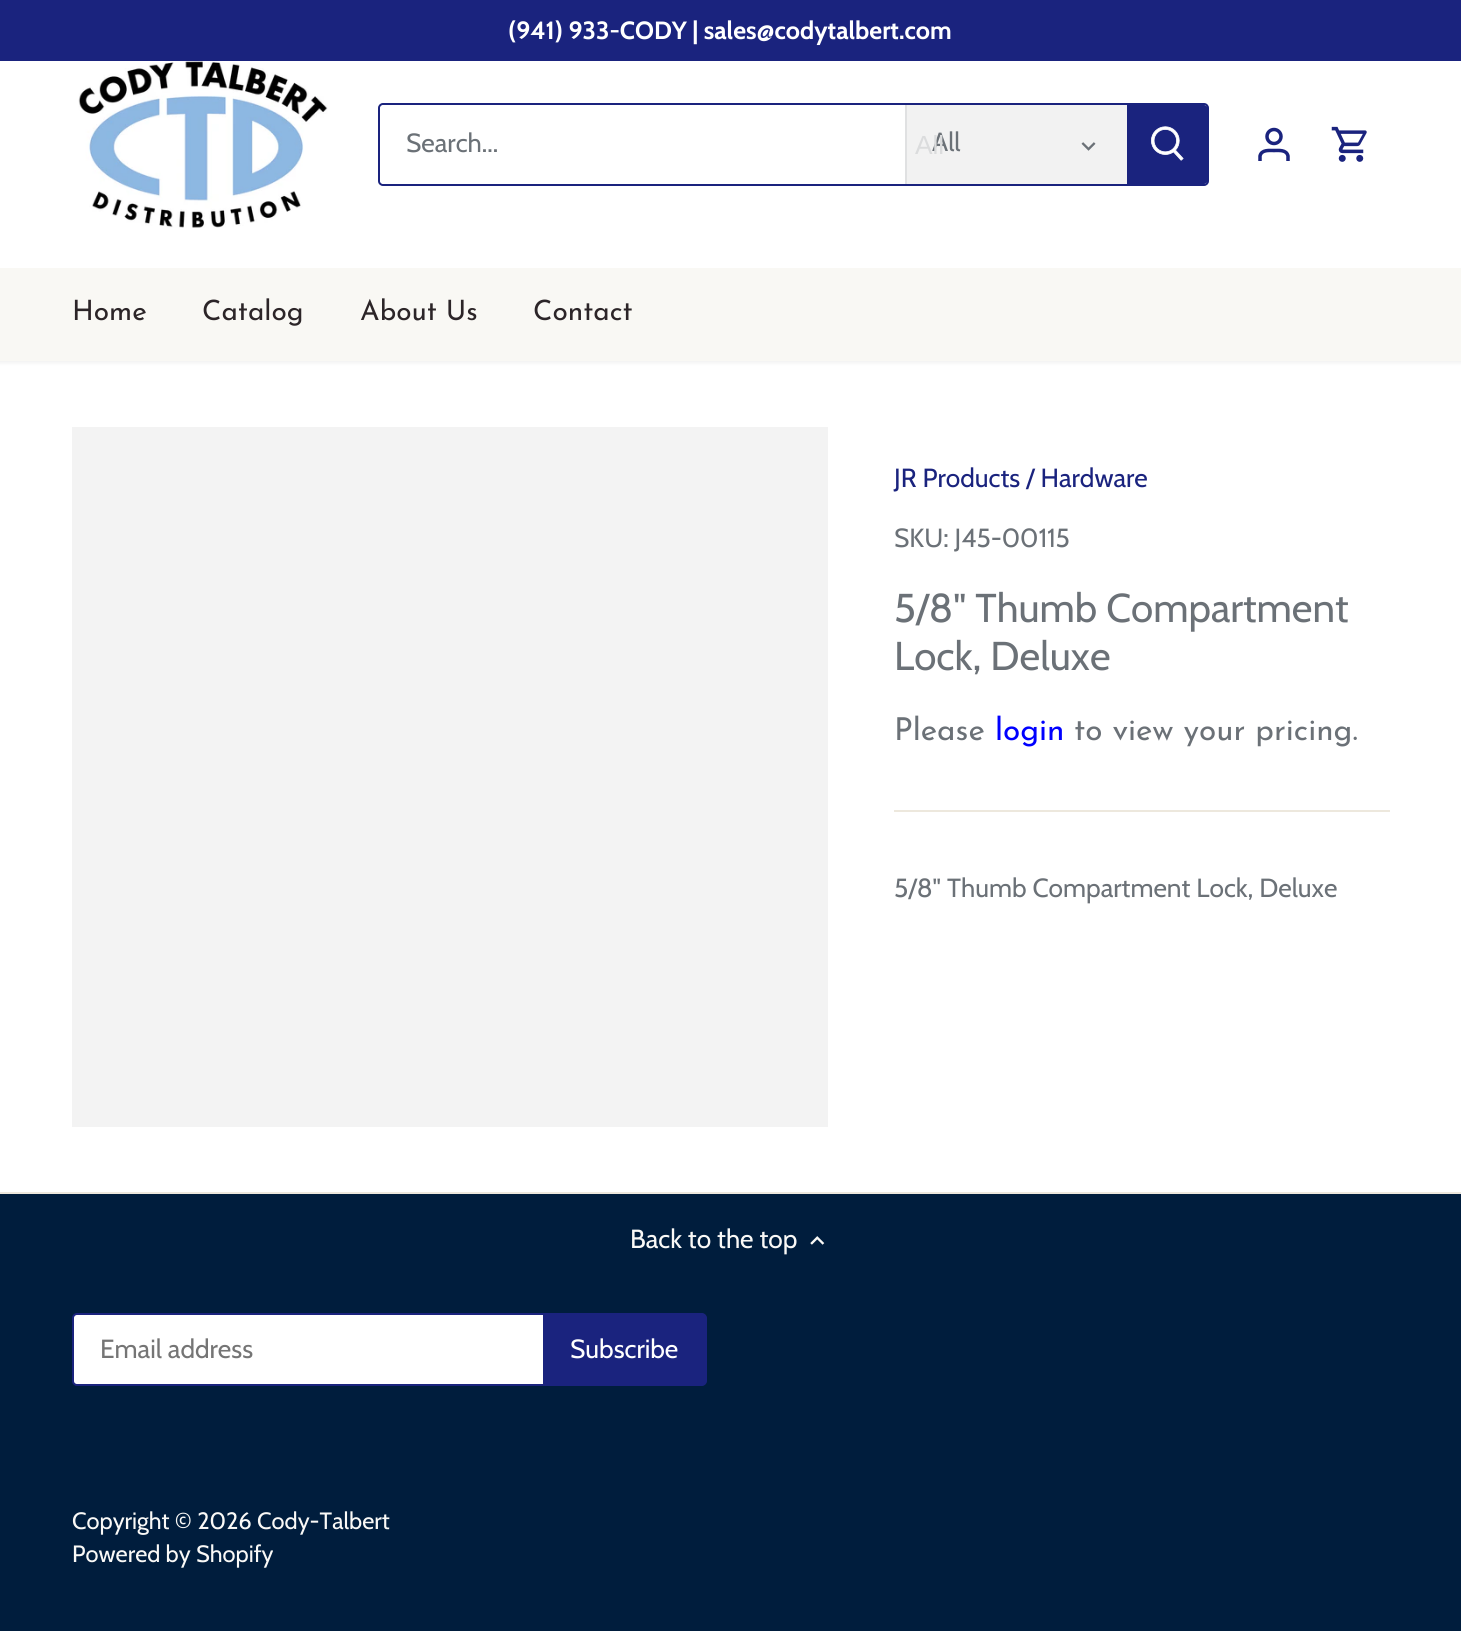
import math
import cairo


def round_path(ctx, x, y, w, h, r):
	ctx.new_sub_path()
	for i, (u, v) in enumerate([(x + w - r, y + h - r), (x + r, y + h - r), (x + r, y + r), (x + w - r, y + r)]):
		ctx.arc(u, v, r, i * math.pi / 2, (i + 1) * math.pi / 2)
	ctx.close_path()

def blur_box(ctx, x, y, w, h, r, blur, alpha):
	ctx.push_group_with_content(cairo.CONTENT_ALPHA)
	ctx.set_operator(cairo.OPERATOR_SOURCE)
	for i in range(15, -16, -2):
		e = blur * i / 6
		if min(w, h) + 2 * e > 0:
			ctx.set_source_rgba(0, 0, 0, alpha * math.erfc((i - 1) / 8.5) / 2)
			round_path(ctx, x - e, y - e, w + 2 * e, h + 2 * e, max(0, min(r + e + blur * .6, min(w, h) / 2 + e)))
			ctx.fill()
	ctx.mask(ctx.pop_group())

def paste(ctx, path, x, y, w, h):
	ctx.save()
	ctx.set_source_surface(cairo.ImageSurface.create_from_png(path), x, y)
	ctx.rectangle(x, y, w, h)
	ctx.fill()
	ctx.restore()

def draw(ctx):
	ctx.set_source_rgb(0, 0.114, 0.239)
	ctx.paint()
	ctx.set_source_rgb(1, 1, 1)
	ctx.rectangle(0, 361, 1461, 831)
	ctx.fill()
	ctx.set_source_rgb(0, 0, 0)
	blur_box(ctx, -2, 18, 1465, 344, 0, 2.5, 0.08)
	ctx.set_source_rgb(0.102, 0.137, 0.494)
	ctx.rectangle(0, 0, 1461, 61)
	ctx.fill()
	ctx.select_font_face('Cabin', cairo.FONT_SLANT_NORMAL, cairo.FONT_WEIGHT_BOLD)
	ctx.set_font_size(24.9)
	ctx.set_source_rgb(1, 1, 1)
	ctx.move_to(508, 39)
	ctx.show_text('(941) 933-CODY | sales@codytalbert.com')
	ctx.set_source_rgb(0.976, 0.969, 0.957)
	ctx.rectangle(0, 268, 1461, 93)
	ctx.fill()
	ctx.set_source_rgb(1, 1, 1)
	ctx.rectangle(0, 61, 1461, 207)
	ctx.fill()
	paste(ctx, 'media/1.png', 78, 61, 250, 167)
	round_path(ctx, 379, 104, 829, 81, 4)
	ctx.set_source_rgb(0.102, 0.137, 0.494)
	ctx.stroke()
	ctx.save()
	round_path(ctx, 380, 105, 828, 79, 4)
	ctx.clip()
	ctx.set_source_rgb(1, 1, 1)
	ctx.new_path()
	ctx.move_to(385, 105)
	ctx.line_to(905, 105)
	ctx.line_to(905, 184)
	ctx.line_to(385, 184)
	ctx.curve_to(382, 184, 380, 182, 380, 179)
	ctx.line_to(380, 110)
	ctx.curve_to(380, 107, 382, 105, 385, 105)
	ctx.close_path()
	ctx.fill()
	ctx.restore()
	ctx.select_font_face('Cabin')
	ctx.set_font_size(26.25)
	ctx.set_source_rgb(0.42, 0.443, 0.467)
	ctx.move_to(406, 152)
	ctx.show_text('Search...')
	ctx.set_source_rgb(0.949, 0.949, 0.949)
	ctx.rectangle(907, 105, 220, 79)
	ctx.fill()
	ctx.set_source_rgb(0.878, 0.882, 0.886)
	ctx.rectangle(905, 105, 2, 79)
	ctx.fill()
	ctx.set_source_rgb(0.42, 0.443, 0.467)
	ctx.move_to(932, 151)
	ctx.show_text('All')
	ctx.select_font_face('Liberation Sans')
	ctx.set_source_rgb(0.859, 0.863, 0.867)
	ctx.move_to(915, 154)
	ctx.show_text('All')
	paste(ctx, 'media/2.png', 1081, 142, 15, 9)
	ctx.set_source_rgb(0.102, 0.137, 0.494)
	ctx.new_path()
	ctx.move_to(1127, 105)
	ctx.line_to(1204, 105)
	ctx.curve_to(1206, 105, 1208, 107, 1208, 109)
	ctx.line_to(1208, 180)
	ctx.curve_to(1208, 182, 1206, 184, 1204, 184)
	ctx.line_to(1127, 184)
	ctx.close_path()
	ctx.fill()
	paste(ctx, 'media/3.png', 1151, 126, 33, 35)
	ctx.arc(1274, 136.5, 7, 0, 2 * math.pi)
	ctx.set_line_width(3.5)
	ctx.stroke()
	ctx.new_path()
	ctx.move_to(1288, 161)
	ctx.line_to(1288, 156)
	ctx.curve_to(1286.5, 149.5, 1279, 150.5, 1274, 150.5)
	ctx.curve_to(1269, 150.5, 1261.5, 149.5, 1260, 156)
	ctx.line_to(1260, 161)
	ctx.stroke()
	paste(ctx, 'media/4.png', 1331, 126, 36, 36)
	ctx.select_font_face('Josefin Sans')
	ctx.set_font_size(28)
	ctx.set_source_rgb(0.173, 0.145, 0.157)
	for x, y, s in [
		(72, 320, 'Home'),
		(202, 320, 'Catalog'),
		(360, 320, 'About Us'),
		(533, 320, 'Contact'),
	]:
		ctx.move_to(x, y)
		ctx.show_text(s)
	ctx.set_source_rgb(0.953, 0.953, 0.953)
	ctx.rectangle(72, 427, 756, 700)
	ctx.fill()
	ctx.select_font_face('Cabin')
	ctx.set_font_size(26.25)
	ctx.set_source_rgb(0.102, 0.137, 0.494)
	ctx.move_to(894, 487)
	ctx.show_text('JR Products / Hardware')
	ctx.set_source_rgb(0.42, 0.443, 0.467)
	ctx.move_to(894, 547)
	ctx.show_text('SKU: J45-00115')
	ctx.set_font_size(40.25)
	ctx.move_to(894, 622)
	ctx.show_text('5/8" Thumb Compartment')
	ctx.move_to(894, 670)
	ctx.show_text('Lock, Deluxe')
	ctx.select_font_face('Josefin Sans')
	ctx.set_font_size(31.5)
	ctx.move_to(894, 740)
	ctx.show_text('Please')
	ctx.set_source_rgb(0, 0, 1)
	ctx.move_to(995, 740)
	ctx.show_text('login')
	ctx.set_source_rgb(0.42, 0.443, 0.467)
	ctx.move_to(1074, 740)
	ctx.show_text('to view your pricing.')
	ctx.set_source_rgb(0.929, 0.91, 0.867)
	ctx.rectangle(894, 810, 496, 2)
	ctx.fill()
	ctx.select_font_face('Cabin')
	ctx.set_font_size(26.25)
	ctx.set_source_rgb(0.42, 0.443, 0.467)
	ctx.move_to(894, 897)
	ctx.show_text('5/8" Thumb Compartment Lock, Deluxe')
	ctx.set_source_rgb(0.929, 0.91, 0.867)
	ctx.rectangle(0, 1192, 1461, 2)
	ctx.fill()
	ctx.set_source_rgb(0.98, 0.976, 0.965)
	ctx.move_to(630, 1248)
	ctx.show_text('Back to the top')
	paste(ctx, 'media/5.png', 810, 1236, 15, 9)
	ctx.set_source_rgb(1, 1, 1)
	round_path(ctx, 73, 1314, 631, 71, 4)
	ctx.fill_preserve()
	ctx.set_source_rgb(0.102, 0.137, 0.494)
	ctx.set_line_width(2)
	ctx.stroke()
	ctx.set_source_rgb(0.459, 0.459, 0.459)
	ctx.move_to(100, 1358)
	ctx.show_text('Email address')
	ctx.set_source_rgb(0.102, 0.137, 0.494)
	ctx.new_path()
	ctx.move_to(544, 1314)
	ctx.line_to(702, 1314)
	ctx.curve_to(704, 1314, 706, 1316, 706, 1318)
	ctx.line_to(706, 1381)
	ctx.curve_to(706, 1383, 704, 1385, 702, 1385)
	ctx.line_to(544, 1385)
	ctx.close_path()
	ctx.fill_preserve()
	ctx.stroke()
	ctx.set_source_rgb(1, 1, 1)
	ctx.move_to(570, 1358)
	ctx.show_text('Subscribe')
	ctx.set_font_size(23.6)
	ctx.set_source_rgb(0.98, 0.976, 0.965)
	ctx.move_to(72, 1529)
	ctx.show_text('Copyright © 2026 Cody-Talbert')
	ctx.move_to(72, 1562)
	ctx.show_text('Powered by Shopify')


surface = cairo.ImageSurface(cairo.FORMAT_RGB24, 1461, 1631)
ctx = cairo.Context(surface)
options = cairo.FontOptions()
options.set_hint_metrics(cairo.HINT_METRICS_OFF)
options.set_hint_style(cairo.HINT_STYLE_NONE)
ctx.set_font_options(options)
ctx.set_miter_limit(4)
draw(ctx)
surface.write_to_png('image.png')
